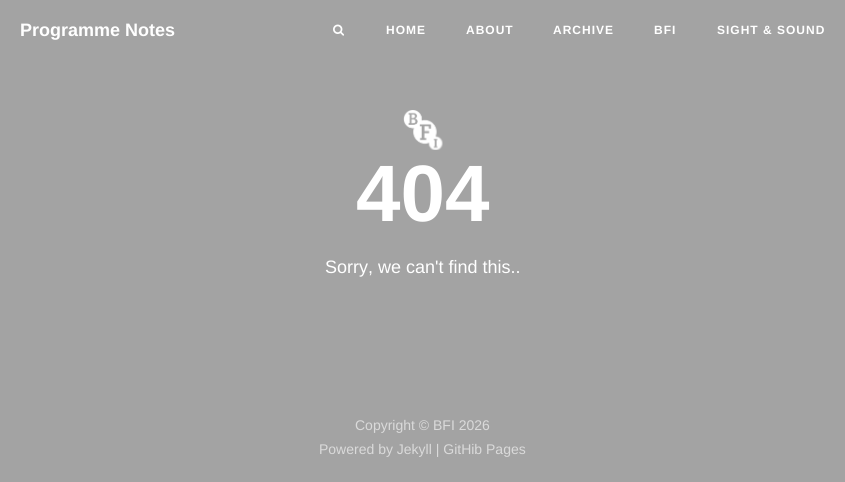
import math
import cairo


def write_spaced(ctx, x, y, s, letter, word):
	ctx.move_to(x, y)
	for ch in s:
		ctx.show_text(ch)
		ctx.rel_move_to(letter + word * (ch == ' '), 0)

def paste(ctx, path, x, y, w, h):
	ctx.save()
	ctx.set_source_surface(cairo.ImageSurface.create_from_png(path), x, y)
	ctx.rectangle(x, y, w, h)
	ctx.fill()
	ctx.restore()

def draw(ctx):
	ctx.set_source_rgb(0.639, 0.639, 0.639)
	ctx.paint()
	ctx.select_font_face('Liberation Sans', cairo.FONT_SLANT_NORMAL, cairo.FONT_WEIGHT_BOLD)
	ctx.set_font_size(18)
	ctx.set_source_rgb(1, 1, 1)
	ctx.move_to(20, 36)
	ctx.show_text('Programme Notes')
	paste(ctx, 'media/1.png', 333, 24, 11, 12)
	ctx.set_font_size(12)
	for x, y, s in [
		(386, 34, 'HOME'),
		(466, 34, 'ABOUT'),
		(553, 34, 'ARCHIVE'),
		(654, 34, 'BFI'),
		(717, 34, 'SIGHT & SOUND'),
	]:
		write_spaced(ctx, x, y, s, 1, 0)
	paste(ctx, 'media/2.png', 403, 110, 40, 40)
	ctx.set_font_size(80)
	ctx.move_to(356, 221)
	ctx.show_text('404')
	ctx.select_font_face('Liberation Sans')
	ctx.set_font_size(18)
	ctx.move_to(325, 273)
	ctx.show_text('Sorry, we can\'t find this..')
	ctx.set_font_size(14)
	ctx.set_source_rgb(0.855, 0.855, 0.855)
	ctx.move_to(355, 430)
	ctx.show_text('Copyright © BFI 2026')
	ctx.move_to(319, 454)
	ctx.show_text('Powered by Jekyll | GitHib Pages')


surface = cairo.ImageSurface(cairo.FORMAT_RGB24, 845, 482)
ctx = cairo.Context(surface)
options = cairo.FontOptions()
options.set_hint_metrics(cairo.HINT_METRICS_OFF)
options.set_hint_style(cairo.HINT_STYLE_NONE)
ctx.set_font_options(options)
ctx.set_miter_limit(4)
draw(ctx)
surface.write_to_png('image.png')
